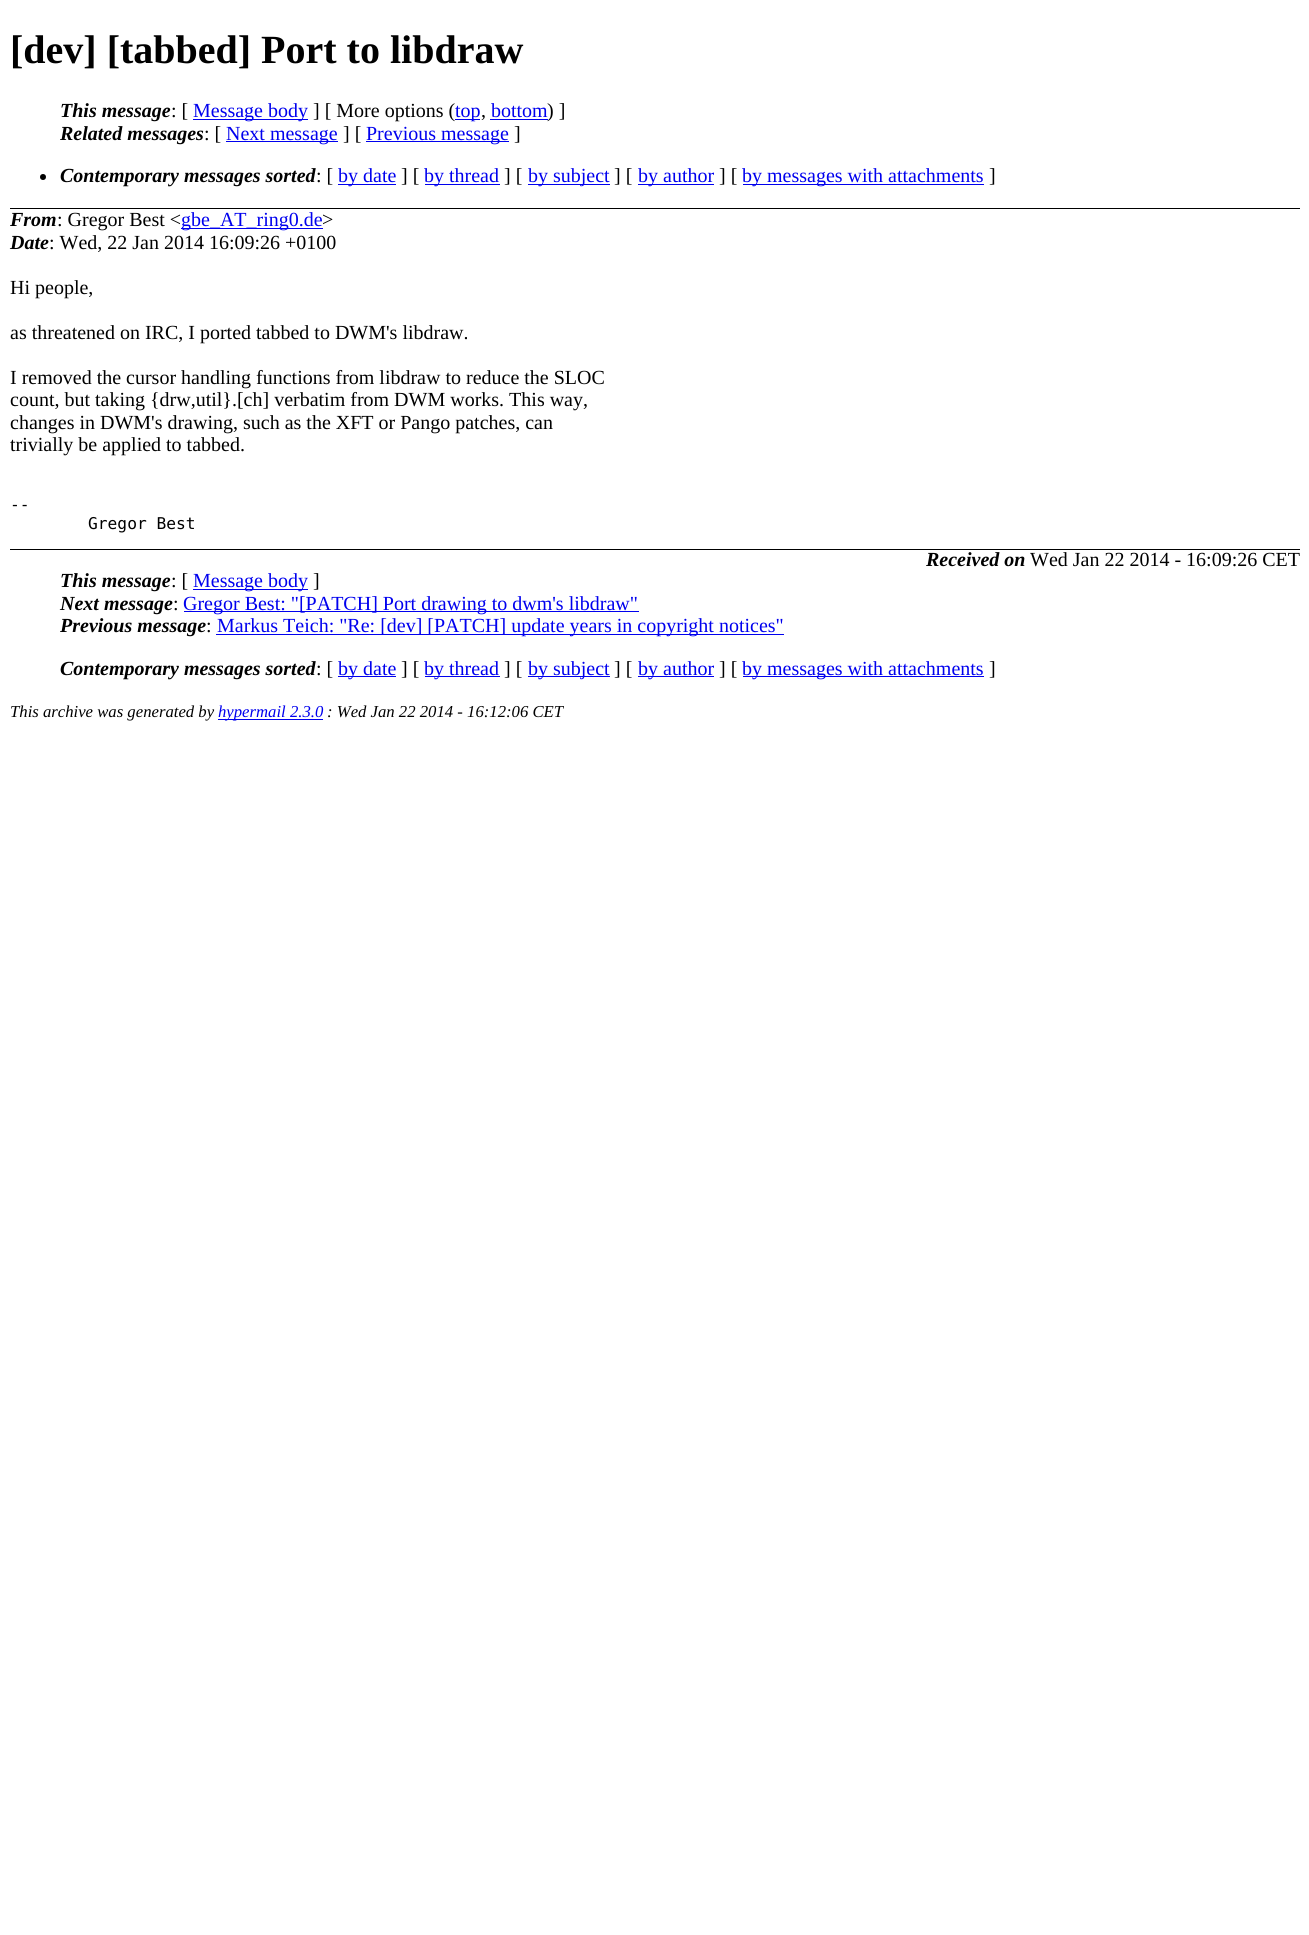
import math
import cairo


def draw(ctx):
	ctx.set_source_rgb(1, 1, 1)
	ctx.paint()
	ctx.set_source_rgb(0, 0, 0)
	ctx.rectangle(10, 208, 1290, 1)
	ctx.fill()
	ctx.select_font_face('Liberation Serif', cairo.FONT_SLANT_NORMAL, cairo.FONT_WEIGHT_BOLD)
	ctx.set_font_size(40)
	ctx.move_to(10, 63)
	ctx.show_text('[dev] [tabbed] Port to libdraw')
	ctx.select_font_face('Liberation Serif', cairo.FONT_SLANT_ITALIC, cairo.FONT_WEIGHT_BOLD)
	ctx.set_font_size(20)
	ctx.move_to(60, 117)
	ctx.show_text('This message')
	ctx.select_font_face('Liberation Serif')
	ctx.move_to(171, 117)
	ctx.show_text(': [')
	ctx.set_source_rgb(0, 0, 0.933)
	ctx.rectangle(193, 119, 115, 1)
	ctx.fill()
	ctx.move_to(193, 117)
	ctx.show_text('Message body')
	ctx.set_source_rgb(0, 0, 0)
	ctx.move_to(313, 117)
	ctx.show_text('] [ More options (')
	ctx.set_source_rgb(0, 0, 0.933)
	ctx.rectangle(455, 119, 25, 1)
	ctx.fill()
	ctx.move_to(455, 117)
	ctx.show_text('top')
	ctx.set_source_rgb(0, 0, 0)
	ctx.move_to(481, 117)
	ctx.show_text(',')
	ctx.set_source_rgb(0, 0, 0.933)
	ctx.move_to(491, 117)
	ctx.show_text('bottom')
	ctx.rectangle(490, 119, 58, 1)
	ctx.fill()
	ctx.set_source_rgb(0, 0, 0)
	ctx.move_to(547, 117)
	ctx.show_text(') ]')
	ctx.select_font_face('Liberation Serif', cairo.FONT_SLANT_ITALIC, cairo.FONT_WEIGHT_BOLD)
	ctx.move_to(60, 140)
	ctx.show_text('Related messages')
	ctx.select_font_face('Liberation Serif')
	ctx.move_to(204, 140)
	ctx.show_text(': [')
	ctx.set_source_rgb(0, 0, 0.933)
	ctx.rectangle(226, 141, 112, 1)
	ctx.fill()
	ctx.move_to(226, 140)
	ctx.show_text('Next message')
	ctx.set_source_rgb(0, 0, 0)
	ctx.move_to(343, 140)
	ctx.show_text('] [')
	ctx.set_source_rgb(0, 0, 0.933)
	ctx.rectangle(366, 141, 143, 1)
	ctx.fill()
	ctx.move_to(366, 140)
	ctx.show_text('Previous message')
	ctx.set_source_rgb(0, 0, 0)
	ctx.move_to(514, 140)
	ctx.show_text(']')
	ctx.new_path()
	ctx.arc(43, 177, 3, 0, 2 * math.pi)
	ctx.fill()
	ctx.select_font_face('Liberation Serif', cairo.FONT_SLANT_ITALIC, cairo.FONT_WEIGHT_BOLD)
	ctx.move_to(60, 182)
	ctx.show_text('Contemporary messages sorted')
	ctx.select_font_face('Liberation Serif')
	ctx.move_to(316, 182)
	ctx.show_text(': [')
	ctx.set_source_rgb(0, 0, 0.933)
	ctx.rectangle(338, 184, 58, 1)
	ctx.fill()
	ctx.move_to(338, 182)
	ctx.show_text('by date')
	ctx.set_source_rgb(0, 0, 0)
	ctx.move_to(401, 182)
	ctx.show_text('] [')
	ctx.set_source_rgb(0, 0, 0.933)
	ctx.rectangle(425, 184, 75, 1)
	ctx.fill()
	ctx.move_to(424, 182)
	ctx.show_text('by thread')
	ctx.set_source_rgb(0, 0, 0)
	ctx.move_to(504, 182)
	ctx.show_text('] [')
	ctx.set_source_rgb(0, 0, 0.933)
	ctx.rectangle(528, 184, 82, 1)
	ctx.fill()
	ctx.move_to(528, 182)
	ctx.show_text('by subject')
	ctx.set_source_rgb(0, 0, 0)
	ctx.move_to(614, 182)
	ctx.show_text('] [')
	ctx.set_source_rgb(0, 0, 0.933)
	ctx.rectangle(638, 184, 76, 1)
	ctx.fill()
	ctx.move_to(638, 182)
	ctx.show_text('by author')
	ctx.set_source_rgb(0, 0, 0)
	ctx.move_to(719, 182)
	ctx.show_text('] [')
	ctx.set_source_rgb(0, 0, 0.933)
	ctx.rectangle(743, 184, 241, 1)
	ctx.fill()
	ctx.move_to(742, 182)
	ctx.show_text('by messages with attachments')
	ctx.set_source_rgb(0, 0, 0)
	ctx.move_to(989, 182)
	ctx.show_text(']')
	ctx.select_font_face('Liberation Serif', cairo.FONT_SLANT_ITALIC, cairo.FONT_WEIGHT_BOLD)
	ctx.move_to(10, 226)
	ctx.show_text('From')
	ctx.select_font_face('Liberation Serif')
	ctx.move_to(57, 226)
	ctx.show_text(': Gregor Best <')
	ctx.set_source_rgb(0, 0, 0.933)
	ctx.rectangle(181, 228, 142, 1)
	ctx.fill()
	ctx.move_to(181, 226)
	ctx.show_text('gbe_AT_ring0.de')
	ctx.set_source_rgb(0, 0, 0)
	ctx.move_to(322, 226)
	ctx.show_text('>')
	ctx.select_font_face('Liberation Serif', cairo.FONT_SLANT_ITALIC, cairo.FONT_WEIGHT_BOLD)
	ctx.move_to(10, 249)
	ctx.show_text('Date')
	ctx.select_font_face('Liberation Serif')
	for x, y, s in [
		(49, 249, ': Wed, 22 Jan 2014 16:09:26 +0100'),
		(10, 294, 'Hi people,'),
		(10, 339, 'as threatened on IRC, I ported tabbed to DWM\'s libdraw.'),
		(10, 384, 'I removed the cursor handling functions from libdraw to reduce the SLOC'),
		(10, 406, 'count, but taking {drw,util}.[ch] verbatim from DWM works. This way,'),
		(10, 429, 'changes in DWM\'s drawing, such as the XFT or Pango patches, can'),
		(10, 451, 'trivially be applied to tabbed.'),
	]:
		ctx.move_to(x, y)
		ctx.show_text(s)
	ctx.select_font_face('DejaVu Sans Mono')
	ctx.set_font_size(16.25)
	ctx.move_to(10, 510)
	ctx.show_text('--')
	ctx.move_to(88, 529)
	ctx.show_text('Gregor Best')
	ctx.select_font_face('Liberation Serif', cairo.FONT_SLANT_ITALIC, cairo.FONT_WEIGHT_BOLD)
	ctx.set_font_size(20)
	ctx.move_to(926, 566)
	ctx.show_text('Received on')
	ctx.select_font_face('Liberation Serif')
	ctx.move_to(1030, 566)
	ctx.show_text('Wed Jan 22 2014 - 16:09:26 CET')
	ctx.rectangle(10, 549, 1290, 1)
	ctx.fill()
	ctx.select_font_face('Liberation Serif', cairo.FONT_SLANT_ITALIC, cairo.FONT_WEIGHT_BOLD)
	ctx.move_to(60, 587)
	ctx.show_text('This message')
	ctx.select_font_face('Liberation Serif')
	ctx.move_to(171, 587)
	ctx.show_text(': [')
	ctx.set_source_rgb(0, 0, 0.933)
	ctx.rectangle(193, 589, 115, 1)
	ctx.fill()
	ctx.move_to(193, 587)
	ctx.show_text('Message body')
	ctx.set_source_rgb(0, 0, 0)
	ctx.move_to(313, 587)
	ctx.show_text(']')
	ctx.select_font_face('Liberation Serif', cairo.FONT_SLANT_ITALIC, cairo.FONT_WEIGHT_BOLD)
	ctx.move_to(60, 610)
	ctx.show_text('Next message')
	ctx.select_font_face('Liberation Serif')
	ctx.move_to(173, 610)
	ctx.show_text(':')
	ctx.set_source_rgb(0, 0, 0.933)
	ctx.rectangle(184, 611, 455, 1)
	ctx.fill()
	ctx.move_to(183, 610)
	ctx.show_text('Gregor Best: "[PATCH] Port drawing to dwm\'s libdraw"')
	ctx.select_font_face('Liberation Serif', cairo.FONT_SLANT_ITALIC, cairo.FONT_WEIGHT_BOLD)
	ctx.set_source_rgb(0, 0, 0)
	ctx.move_to(60, 632)
	ctx.show_text('Previous message')
	ctx.select_font_face('Liberation Serif')
	ctx.move_to(206, 632)
	ctx.show_text(':')
	ctx.set_source_rgb(0, 0, 0.933)
	ctx.rectangle(216, 634, 568, 1)
	ctx.fill()
	ctx.move_to(217, 632)
	ctx.show_text('Markus Teich: "Re: [dev] [PATCH] update years in copyright notices"')
	ctx.select_font_face('Liberation Serif', cairo.FONT_SLANT_ITALIC, cairo.FONT_WEIGHT_BOLD)
	ctx.set_source_rgb(0, 0, 0)
	ctx.move_to(60, 675)
	ctx.show_text('Contemporary messages sorted')
	ctx.select_font_face('Liberation Serif')
	ctx.move_to(316, 675)
	ctx.show_text(': [')
	ctx.set_source_rgb(0, 0, 0.933)
	ctx.rectangle(338, 676, 58, 1)
	ctx.fill()
	ctx.move_to(338, 675)
	ctx.show_text('by date')
	ctx.set_source_rgb(0, 0, 0)
	ctx.move_to(401, 675)
	ctx.show_text('] [')
	ctx.set_source_rgb(0, 0, 0.933)
	ctx.rectangle(425, 676, 75, 1)
	ctx.fill()
	ctx.move_to(424, 675)
	ctx.show_text('by thread')
	ctx.set_source_rgb(0, 0, 0)
	ctx.move_to(504, 675)
	ctx.show_text('] [')
	ctx.set_source_rgb(0, 0, 0.933)
	ctx.rectangle(528, 676, 82, 1)
	ctx.fill()
	ctx.move_to(528, 675)
	ctx.show_text('by subject')
	ctx.set_source_rgb(0, 0, 0)
	ctx.move_to(614, 675)
	ctx.show_text('] [')
	ctx.set_source_rgb(0, 0, 0.933)
	ctx.rectangle(638, 676, 76, 1)
	ctx.fill()
	ctx.move_to(638, 675)
	ctx.show_text('by author')
	ctx.set_source_rgb(0, 0, 0)
	ctx.move_to(719, 675)
	ctx.show_text('] [')
	ctx.set_source_rgb(0, 0, 0.933)
	ctx.rectangle(743, 676, 241, 1)
	ctx.fill()
	ctx.move_to(742, 675)
	ctx.show_text('by messages with attachments')
	ctx.set_source_rgb(0, 0, 0)
	ctx.move_to(989, 675)
	ctx.show_text(']')
	ctx.select_font_face('Liberation Serif', cairo.FONT_SLANT_ITALIC)
	ctx.set_font_size(16.7)
	ctx.move_to(10, 717)
	ctx.show_text('This archive was generated by')
	ctx.set_source_rgb(0, 0, 0.933)
	ctx.rectangle(218, 719, 105, 1)
	ctx.fill()
	ctx.move_to(218, 717)
	ctx.show_text('hypermail 2.3.0')
	ctx.set_source_rgb(0, 0, 0)
	ctx.move_to(327, 717)
	ctx.show_text(': Wed Jan 22 2014 - 16:12:06 CET')


surface = cairo.ImageSurface(cairo.FORMAT_RGB24, 1309, 1935)
ctx = cairo.Context(surface)
options = cairo.FontOptions()
options.set_hint_metrics(cairo.HINT_METRICS_OFF)
options.set_hint_style(cairo.HINT_STYLE_NONE)
ctx.set_font_options(options)
ctx.set_miter_limit(4)
draw(ctx)
surface.write_to_png('image.png')
